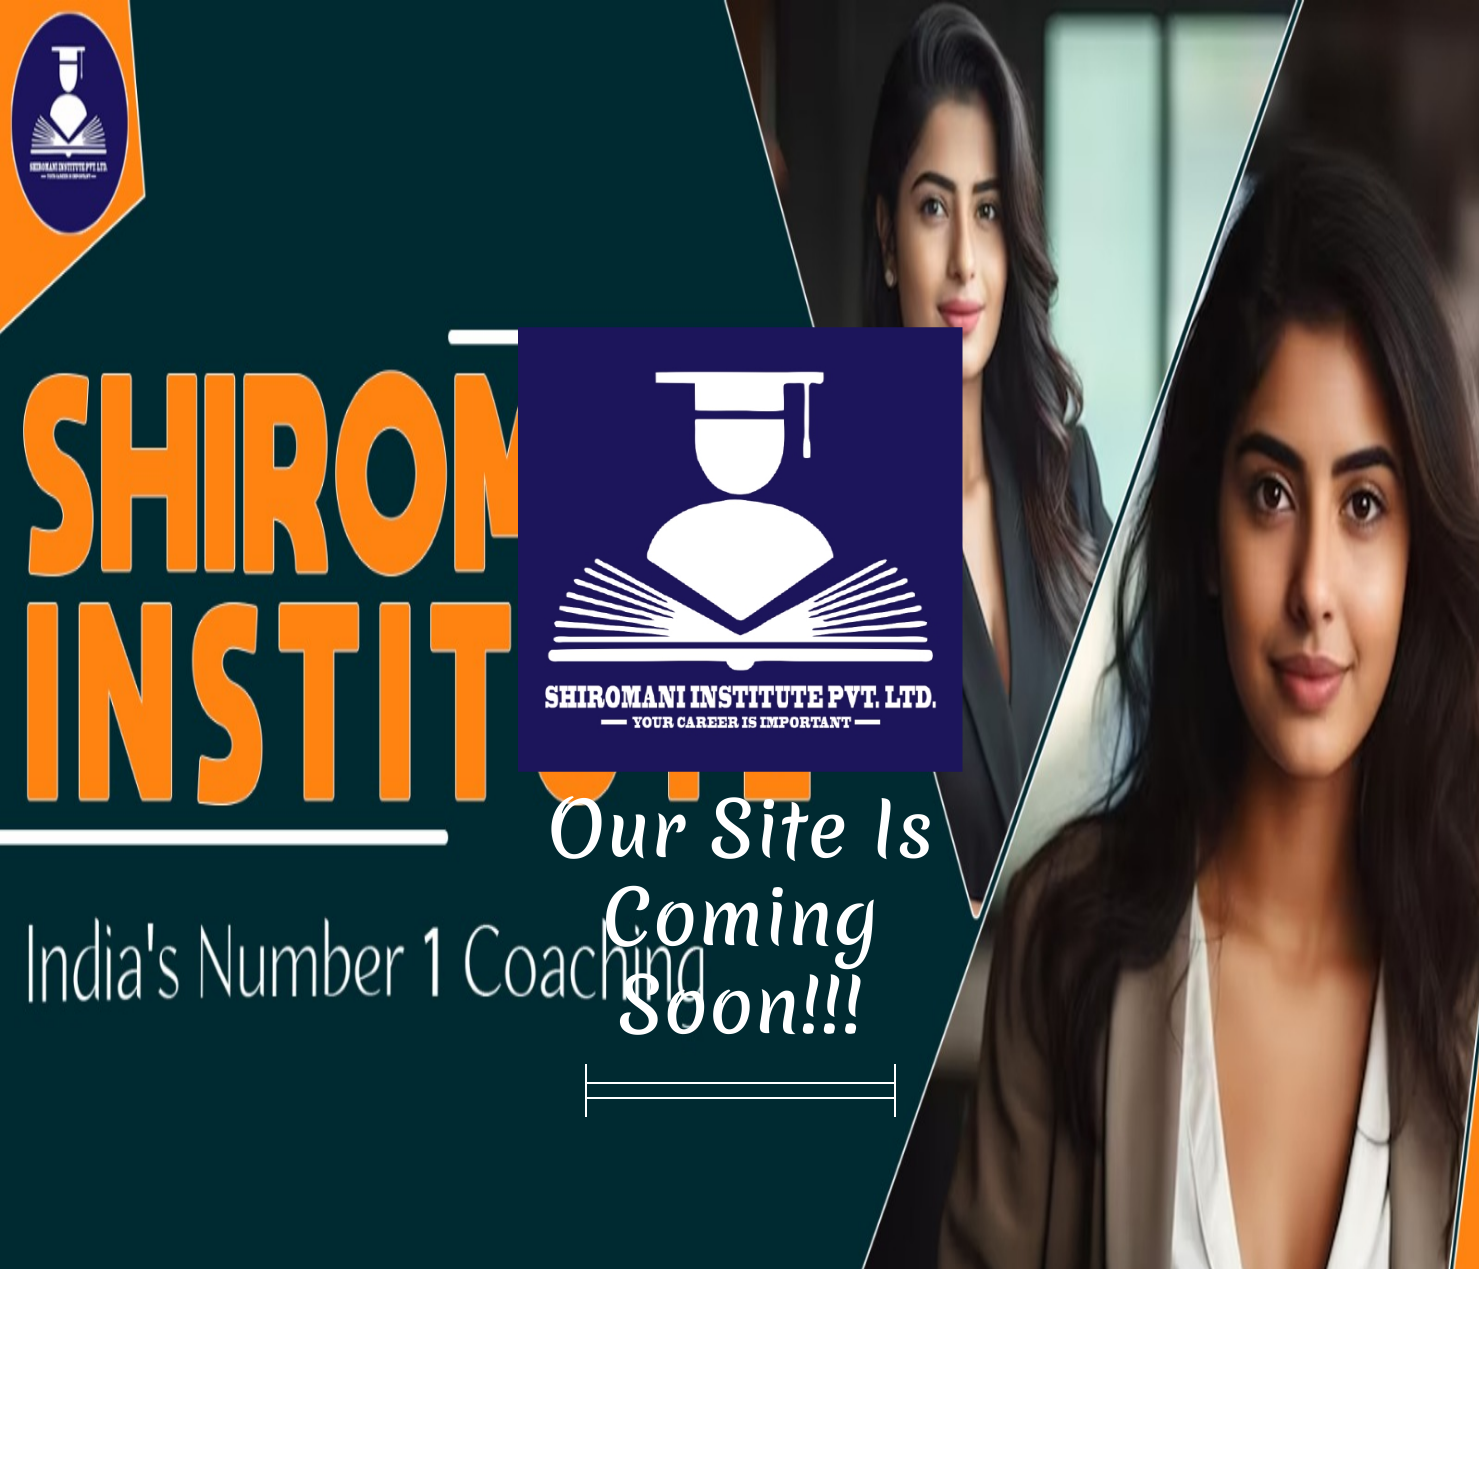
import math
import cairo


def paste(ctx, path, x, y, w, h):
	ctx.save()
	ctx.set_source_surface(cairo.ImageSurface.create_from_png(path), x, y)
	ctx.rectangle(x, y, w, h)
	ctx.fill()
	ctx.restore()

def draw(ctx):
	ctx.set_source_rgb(1, 1, 1)
	ctx.paint()
	paste(ctx, 'media/1.png', 0, 0, 1479, 1269)
	paste(ctx, 'media/2.png', 518, 327, 445, 445)
	ctx.select_font_face('Merienda Medium')
	ctx.set_font_size(73.5)
	ctx.set_source_rgb(1, 1, 1)
	for x, y, s in [
		(547, 857, 'Our Site Is'),
		(602, 945, 'Coming'),
		(617, 1033, 'Soon!!!'),
	]:
		ctx.move_to(x, y)
		ctx.show_text(s)
	ctx.rectangle(894, 1064, 2, 53)
	ctx.rectangle(585, 1064, 2, 53)
	ctx.rectangle(586, 1082, 308, 2)
	ctx.rectangle(586, 1097, 308, 2)
	ctx.fill()


surface = cairo.ImageSurface(cairo.FORMAT_RGB24, 1479, 1479)
ctx = cairo.Context(surface)
options = cairo.FontOptions()
options.set_hint_metrics(cairo.HINT_METRICS_OFF)
options.set_hint_style(cairo.HINT_STYLE_NONE)
ctx.set_font_options(options)
ctx.set_miter_limit(4)
draw(ctx)
surface.write_to_png('image.png')
